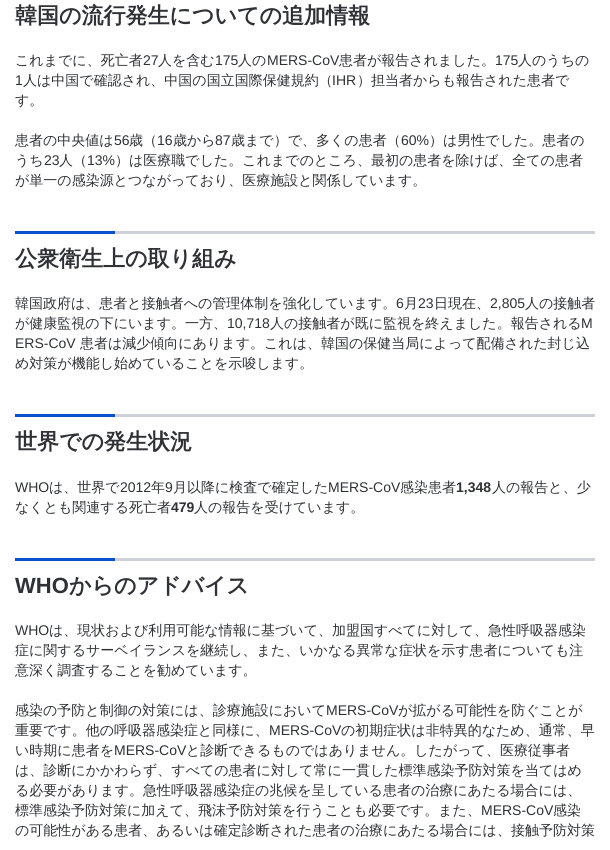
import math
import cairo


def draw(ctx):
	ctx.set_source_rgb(1, 1, 1)
	ctx.paint()
	ctx.select_font_face('WenQuanYi Zen Hei', cairo.FONT_SLANT_NORMAL, cairo.FONT_WEIGHT_BOLD)
	ctx.set_font_size(22)
	ctx.set_source_rgb(0.18, 0.192, 0.212)
	ctx.move_to(15, 23)
	ctx.show_text('韓国の流行発生についての追加情報')
	ctx.select_font_face('WenQuanYi Zen Hei Medium')
	ctx.set_font_size(14)
	ctx.move_to(15, 65)
	ctx.show_text('これまでに、死亡者')
	ctx.select_font_face('Liberation Sans')
	ctx.move_to(143, 65)
	ctx.show_text('27')
	ctx.select_font_face('WenQuanYi Zen Hei Medium')
	ctx.move_to(158, 65)
	ctx.show_text('人を含む')
	ctx.select_font_face('Liberation Sans')
	ctx.move_to(215, 65)
	ctx.show_text('175')
	ctx.select_font_face('WenQuanYi Zen Hei Medium')
	ctx.move_to(238, 65)
	ctx.show_text('人の')
	ctx.select_font_face('Liberation Sans')
	ctx.move_to(267, 65)
	ctx.show_text('MERS-CoV')
	ctx.select_font_face('WenQuanYi Zen Hei Medium')
	ctx.move_to(339, 65)
	ctx.show_text('患者が報告されました。')
	ctx.select_font_face('Liberation Sans')
	ctx.move_to(495, 65)
	ctx.show_text('175')
	ctx.select_font_face('WenQuanYi Zen Hei Medium')
	ctx.move_to(518, 65)
	ctx.show_text('人のうちの')
	ctx.select_font_face('Liberation Sans')
	ctx.move_to(15, 85)
	ctx.show_text('1')
	ctx.select_font_face('WenQuanYi Zen Hei Medium')
	ctx.move_to(23, 85)
	ctx.show_text('人は中国で確認され、中国の国立国際保健規約（')
	ctx.select_font_face('Liberation Sans')
	ctx.move_to(332, 85)
	ctx.show_text('IHR')
	ctx.select_font_face('WenQuanYi Zen Hei Medium')
	for x, y, s in [
		(357, 85, '）担当者からも報告された患者で'),
		(15, 105, 'す。'),
		(15, 145, '患者の中央値は'),
	]:
		ctx.move_to(x, y)
		ctx.show_text(s)
	ctx.select_font_face('Liberation Sans')
	ctx.move_to(114, 145)
	ctx.show_text('56')
	ctx.select_font_face('WenQuanYi Zen Hei Medium')
	ctx.move_to(129, 145)
	ctx.show_text('歳（')
	ctx.select_font_face('Liberation Sans')
	ctx.move_to(157, 145)
	ctx.show_text('16')
	ctx.select_font_face('WenQuanYi Zen Hei Medium')
	ctx.move_to(173, 145)
	ctx.show_text('歳から')
	ctx.select_font_face('Liberation Sans')
	ctx.move_to(215, 145)
	ctx.show_text('87')
	ctx.select_font_face('WenQuanYi Zen Hei Medium')
	ctx.move_to(231, 145)
	ctx.show_text('歳まで）で、多くの患者（')
	ctx.select_font_face('Liberation Sans')
	ctx.move_to(401, 145)
	ctx.show_text('60%')
	ctx.select_font_face('WenQuanYi Zen Hei Medium')
	ctx.move_to(429, 145)
	ctx.show_text('）は男性でした。患者の')
	ctx.move_to(15, 165)
	ctx.show_text('うち')
	ctx.select_font_face('Liberation Sans')
	ctx.move_to(44, 165)
	ctx.show_text('23')
	ctx.select_font_face('WenQuanYi Zen Hei Medium')
	ctx.move_to(59, 165)
	ctx.show_text('人（')
	ctx.select_font_face('Liberation Sans')
	ctx.move_to(87, 165)
	ctx.show_text('13%')
	ctx.select_font_face('WenQuanYi Zen Hei Medium')
	ctx.move_to(115, 165)
	ctx.show_text('）は医療職でした。これまでのところ、最初の患者を除けば、全ての患者')
	ctx.move_to(15, 185)
	ctx.show_text('が単一の感染源とつながっており、医療施設と関係しています。')
	ctx.set_source_rgb(0.808, 0.82, 0.851)
	ctx.rectangle(115, 231, 480, 3)
	ctx.fill()
	ctx.set_source_rgb(0.024, 0.314, 0.796)
	ctx.rectangle(15, 231, 100, 3)
	ctx.fill()
	ctx.select_font_face('WenQuanYi Zen Hei', cairo.FONT_SLANT_NORMAL, cairo.FONT_WEIGHT_BOLD)
	ctx.set_font_size(22)
	ctx.set_source_rgb(0.18, 0.192, 0.212)
	ctx.move_to(15, 266)
	ctx.show_text('公衆衛生上の取り組み')
	ctx.select_font_face('WenQuanYi Zen Hei Medium')
	ctx.set_font_size(14)
	ctx.move_to(15, 308)
	ctx.show_text('韓国政府は、患者と接触者への管理体制を強化しています。')
	ctx.select_font_face('Liberation Sans')
	ctx.move_to(396, 308)
	ctx.show_text('6')
	ctx.select_font_face('WenQuanYi Zen Hei Medium')
	ctx.move_to(404, 308)
	ctx.show_text('月')
	ctx.select_font_face('Liberation Sans')
	ctx.move_to(418, 308)
	ctx.show_text('23')
	ctx.select_font_face('WenQuanYi Zen Hei Medium')
	ctx.move_to(434, 308)
	ctx.show_text('日現在、')
	ctx.select_font_face('Liberation Sans')
	ctx.move_to(490, 308)
	ctx.show_text('2,805')
	ctx.select_font_face('WenQuanYi Zen Hei Medium')
	ctx.move_to(525, 308)
	ctx.show_text('人の接触者')
	ctx.move_to(15, 328)
	ctx.show_text('が健康監視の下にいます。一方、')
	ctx.select_font_face('Liberation Sans')
	ctx.move_to(227, 328)
	ctx.show_text('10,718')
	ctx.select_font_face('WenQuanYi Zen Hei Medium')
	ctx.move_to(270, 328)
	ctx.show_text('人の接触者が既に監視を終えました。報告される')
	ctx.select_font_face('Liberation Sans')
	ctx.move_to(581, 328)
	ctx.show_text('M')
	ctx.move_to(15, 348)
	ctx.show_text('ERS-CoV')
	ctx.select_font_face('WenQuanYi Zen Hei Medium')
	ctx.move_to(80, 348)
	ctx.show_text('患者は減少傾向にあります。これは、韓国の保健当局によって配備された封じ込')
	ctx.move_to(15, 368)
	ctx.show_text('め対策が機能し始めていることを示唆します。')
	ctx.set_source_rgb(0.808, 0.82, 0.851)
	ctx.rectangle(115, 414, 480, 3)
	ctx.fill()
	ctx.set_source_rgb(0.024, 0.314, 0.796)
	ctx.rectangle(15, 414, 100, 3)
	ctx.fill()
	ctx.select_font_face('WenQuanYi Zen Hei', cairo.FONT_SLANT_NORMAL, cairo.FONT_WEIGHT_BOLD)
	ctx.set_font_size(22)
	ctx.set_source_rgb(0.18, 0.192, 0.212)
	ctx.move_to(15, 449)
	ctx.show_text('世界での発生状況')
	ctx.select_font_face('Liberation Sans')
	ctx.set_font_size(14)
	ctx.move_to(15, 492)
	ctx.show_text('WHO')
	ctx.select_font_face('WenQuanYi Zen Hei Medium')
	ctx.move_to(49, 492)
	ctx.show_text('は、世界で')
	ctx.select_font_face('Liberation Sans')
	ctx.move_to(120, 492)
	ctx.show_text('2012')
	ctx.select_font_face('WenQuanYi Zen Hei Medium')
	ctx.move_to(151, 492)
	ctx.show_text('年')
	ctx.select_font_face('Liberation Sans')
	ctx.move_to(165, 492)
	ctx.show_text('9')
	ctx.select_font_face('WenQuanYi Zen Hei Medium')
	ctx.move_to(173, 492)
	ctx.show_text('月以降に検査で確定した')
	ctx.select_font_face('Liberation Sans')
	ctx.move_to(328, 492)
	ctx.show_text('MERS-CoV')
	ctx.select_font_face('WenQuanYi Zen Hei Medium')
	ctx.move_to(400, 492)
	ctx.show_text('感染患者')
	ctx.select_font_face('Liberation Sans', cairo.FONT_SLANT_NORMAL, cairo.FONT_WEIGHT_BOLD)
	ctx.move_to(456, 492)
	ctx.show_text('1,348')
	ctx.select_font_face('WenQuanYi Zen Hei Medium')
	ctx.move_to(492, 492)
	ctx.show_text('人の報告と、少')
	ctx.move_to(15, 512)
	ctx.show_text('なくとも関連する死亡者')
	ctx.select_font_face('Liberation Sans', cairo.FONT_SLANT_NORMAL, cairo.FONT_WEIGHT_BOLD)
	ctx.move_to(171, 512)
	ctx.show_text('479')
	ctx.select_font_face('WenQuanYi Zen Hei Medium')
	ctx.move_to(194, 512)
	ctx.show_text('人の報告を受けています。')
	ctx.set_source_rgb(0.808, 0.82, 0.851)
	ctx.rectangle(115, 558, 480, 3)
	ctx.fill()
	ctx.set_source_rgb(0.024, 0.314, 0.796)
	ctx.rectangle(15, 558, 100, 3)
	ctx.fill()
	ctx.select_font_face('Liberation Sans', cairo.FONT_SLANT_NORMAL, cairo.FONT_WEIGHT_BOLD)
	ctx.set_font_size(22)
	ctx.set_source_rgb(0.18, 0.192, 0.212)
	ctx.move_to(15, 593)
	ctx.show_text('WHO')
	ctx.select_font_face('WenQuanYi Zen Hei', cairo.FONT_SLANT_NORMAL, cairo.FONT_WEIGHT_BOLD)
	ctx.move_to(69, 593)
	ctx.show_text('からのアドバイス')
	ctx.select_font_face('Liberation Sans')
	ctx.set_font_size(14)
	ctx.move_to(15, 635)
	ctx.show_text('WHO')
	ctx.select_font_face('WenQuanYi Zen Hei Medium')
	for x, y, s in [
		(49, 635, 'は、現状および利用可能な情報に基づいて、加盟国すべてに対して、急性呼吸器感染'),
		(15, 655, '症に関するサーベイランスを継続し、また、いかなる異常な症状を示す患者についても注'),
		(15, 675, '意深く調査することを勧めています。'),
		(15, 715, '感染の予防と制御の対策には、診療施設において'),
	]:
		ctx.move_to(x, y)
		ctx.show_text(s)
	ctx.select_font_face('Liberation Sans')
	ctx.move_to(326, 715)
	ctx.show_text('MERS-CoV')
	ctx.select_font_face('WenQuanYi Zen Hei Medium')
	ctx.move_to(398, 715)
	ctx.show_text('が拡がる可能性を防ぐことが')
	ctx.move_to(15, 735)
	ctx.show_text('重要です。他の呼吸器感染症と同様に、')
	ctx.select_font_face('Liberation Sans')
	ctx.move_to(269, 735)
	ctx.show_text('MERS-CoV')
	ctx.select_font_face('WenQuanYi Zen Hei Medium')
	ctx.move_to(341, 735)
	ctx.show_text('の初期症状は非特異的なため、通常、早')
	ctx.move_to(15, 755)
	ctx.show_text('い時期に患者を')
	ctx.select_font_face('Liberation Sans')
	ctx.move_to(114, 755)
	ctx.show_text('MERS-CoV')
	ctx.select_font_face('WenQuanYi Zen Hei Medium')
	for x, y, s in [
		(186, 755, 'と診断できるものではありません。したがって、医療従事者'),
		(15, 775, 'は、診断にかかわらず、すべての患者に対して常に一貫した標準感染予防対策を当てはめ'),
		(15, 795, 'る必要があります。急性呼吸器感染症の兆候を呈している患者の治療にあたる場合には、'),
		(15, 815, '標準感染予防対策に加えて、飛沫予防対策を行うことも必要です。また、'),
	]:
		ctx.move_to(x, y)
		ctx.show_text(s)
	ctx.select_font_face('Liberation Sans')
	ctx.move_to(481, 815)
	ctx.show_text('MERS-CoV')
	ctx.select_font_face('WenQuanYi Zen Hei Medium')
	ctx.move_to(553, 815)
	ctx.show_text('感染')
	ctx.move_to(15, 835)
	ctx.show_text('の可能性がある患者、あるいは確定診断された患者の治療にあたる場合には、接触予防対策')


surface = cairo.ImageSurface(cairo.FORMAT_RGB24, 610, 850)
ctx = cairo.Context(surface)
options = cairo.FontOptions()
options.set_hint_metrics(cairo.HINT_METRICS_OFF)
options.set_hint_style(cairo.HINT_STYLE_NONE)
ctx.set_font_options(options)
ctx.set_miter_limit(4)
draw(ctx)
surface.write_to_png('image.png')
